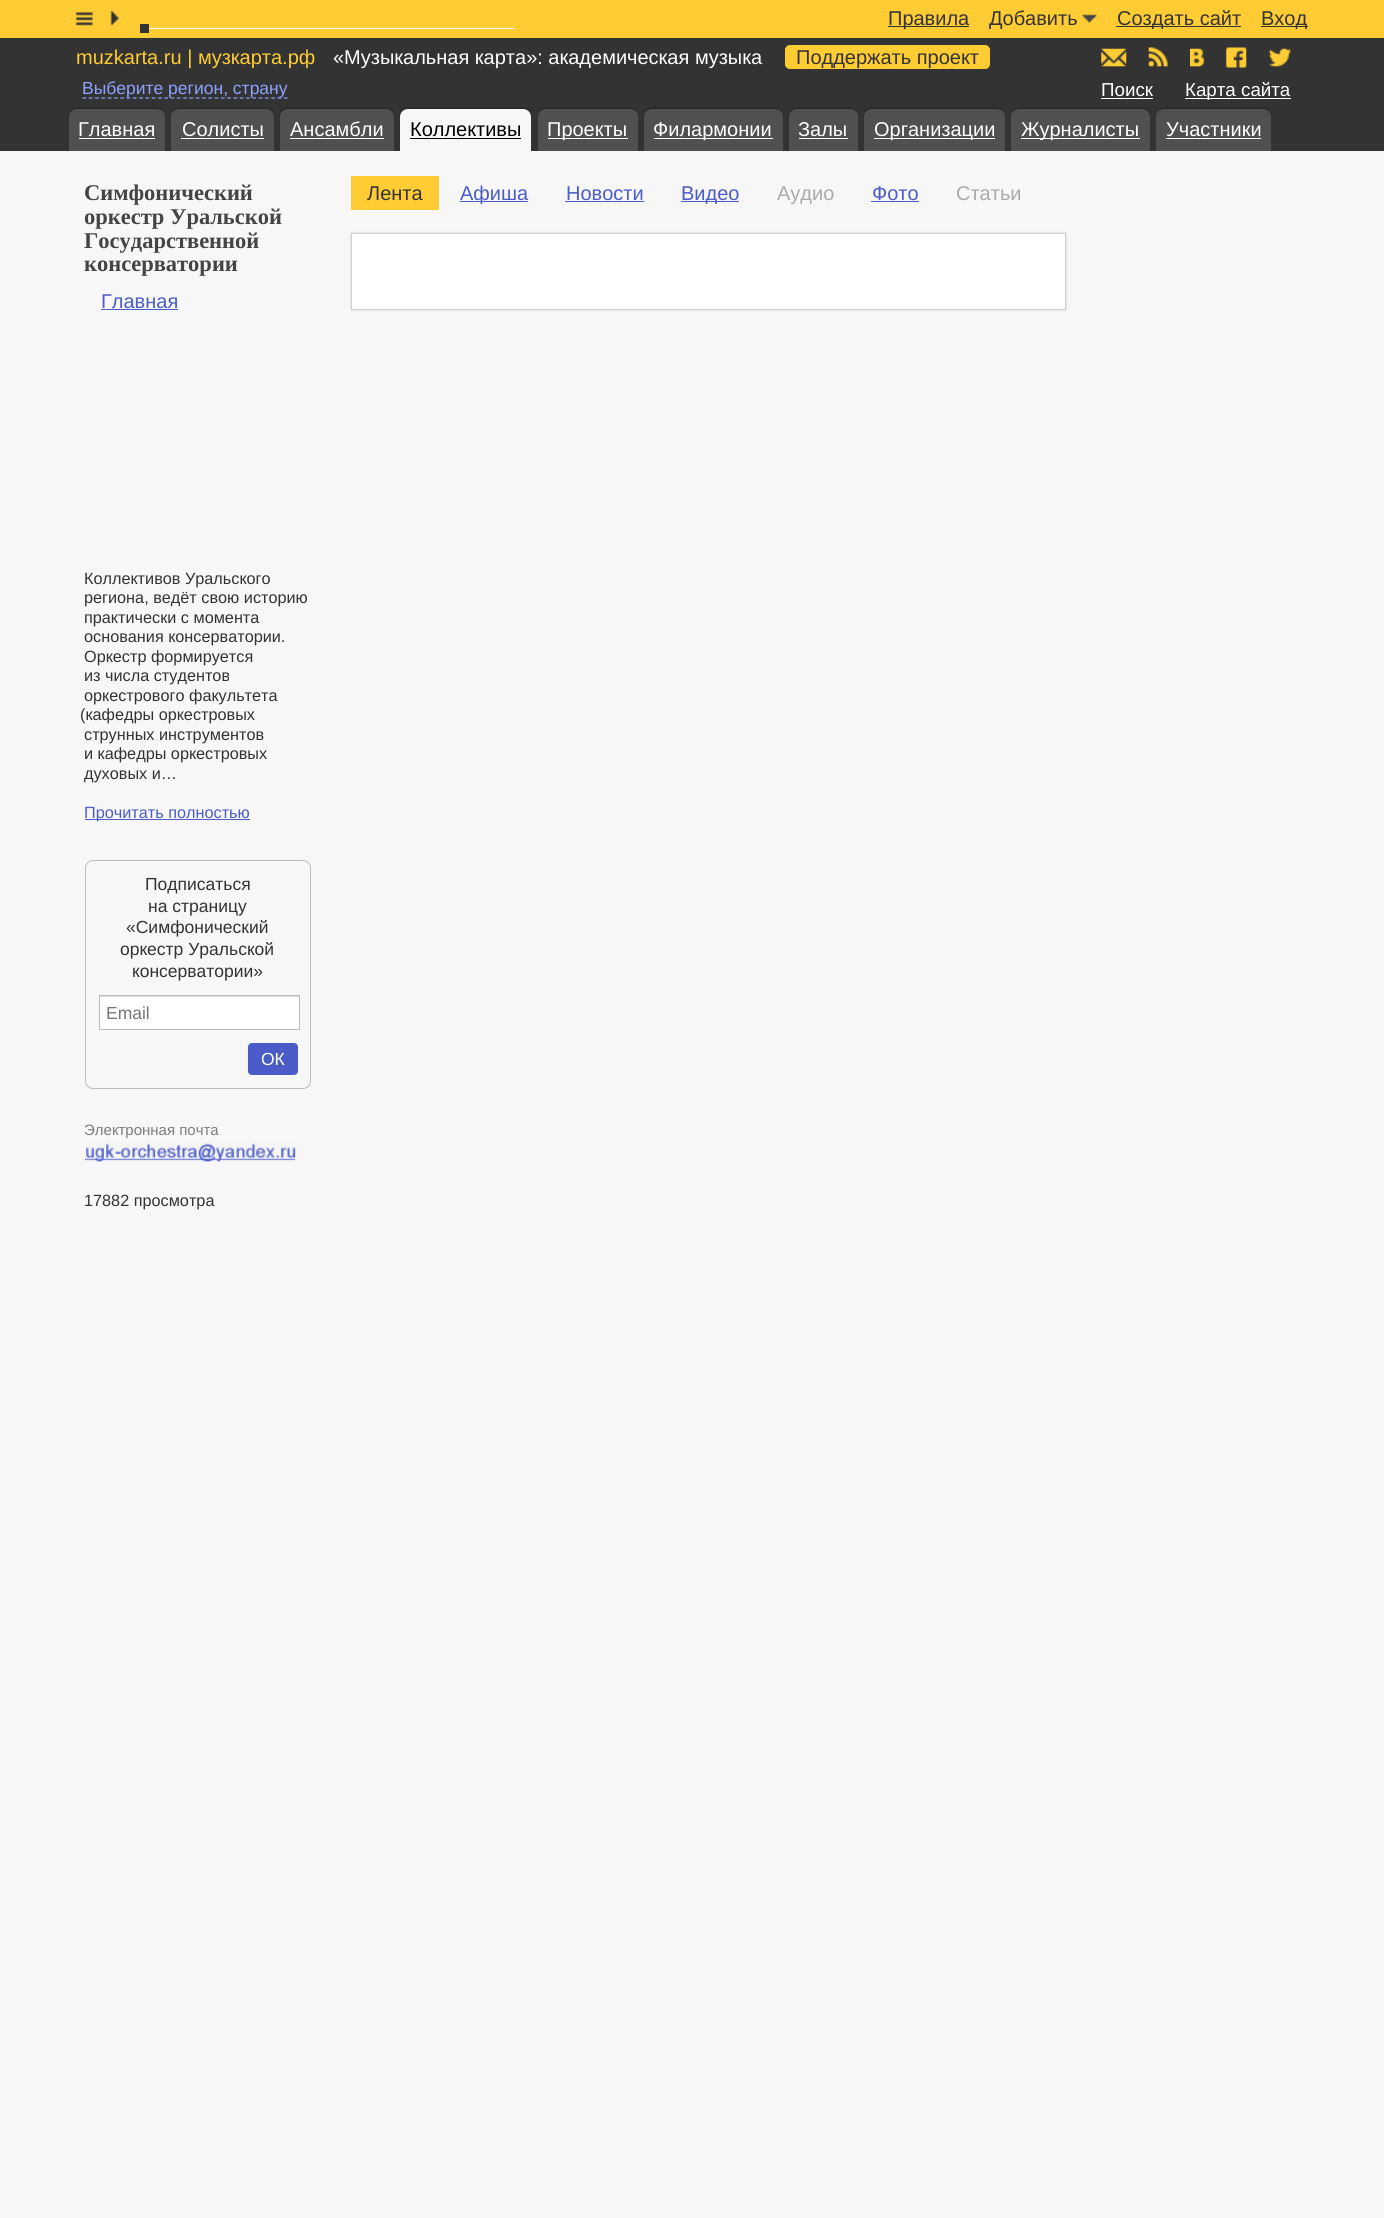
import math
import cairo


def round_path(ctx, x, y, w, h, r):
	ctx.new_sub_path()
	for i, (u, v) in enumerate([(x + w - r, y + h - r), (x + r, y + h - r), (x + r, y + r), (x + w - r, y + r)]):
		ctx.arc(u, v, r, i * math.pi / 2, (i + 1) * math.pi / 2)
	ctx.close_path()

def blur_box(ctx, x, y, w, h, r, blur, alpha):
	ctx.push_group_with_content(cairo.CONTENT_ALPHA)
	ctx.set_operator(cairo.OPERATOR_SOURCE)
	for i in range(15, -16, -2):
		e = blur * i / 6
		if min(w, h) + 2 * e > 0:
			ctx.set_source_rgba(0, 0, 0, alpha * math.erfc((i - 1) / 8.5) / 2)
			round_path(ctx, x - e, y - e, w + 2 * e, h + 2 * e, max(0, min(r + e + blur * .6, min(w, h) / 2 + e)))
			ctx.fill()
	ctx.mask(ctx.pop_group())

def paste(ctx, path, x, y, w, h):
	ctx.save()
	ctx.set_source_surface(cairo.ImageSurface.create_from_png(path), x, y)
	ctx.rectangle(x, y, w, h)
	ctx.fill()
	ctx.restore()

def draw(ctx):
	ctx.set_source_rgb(0.965, 0.965, 0.965)
	ctx.paint()
	ctx.set_source_rgb(1, 0.8, 0.2)
	ctx.rectangle(0, 0, 1384, 38)
	ctx.fill()
	paste(ctx, 'media/1.png', 75, 12, 18, 14)
	paste(ctx, 'media/2.png', 110, 11, 10, 15)
	ctx.set_source_rgb(0.2, 0.2, 0.2)
	ctx.rectangle(888, 26, 81, 1)
	ctx.fill()
	ctx.select_font_face('Liberation Sans')
	ctx.set_font_size(20)
	ctx.move_to(888, 25)
	ctx.show_text('Правила')
	ctx.move_to(989, 25)
	ctx.show_text('Добавить')
	paste(ctx, 'media/3.png', 1081, 14, 16, 10)
	ctx.rectangle(1116, 26, 125, 1)
	ctx.fill()
	ctx.move_to(1117, 25)
	ctx.show_text('Создать сайт')
	ctx.rectangle(1261, 26, 47, 1)
	ctx.fill()
	ctx.move_to(1261, 25)
	ctx.show_text('Вход')
	ctx.rectangle(140, 24, 9, 9)
	ctx.fill()
	ctx.set_source_rgb(1, 1, 1)
	ctx.rectangle(149, 28, 366, 1)
	ctx.fill()
	ctx.set_source_rgb(0.2, 0.2, 0.2)
	ctx.rectangle(0, 38, 1384, 113)
	ctx.fill()
	ctx.set_source_rgb(1, 0.8, 0.2)
	ctx.move_to(76, 64)
	ctx.show_text('muzkarta.ru | музкарта.рф')
	ctx.set_source_rgb(1, 1, 1)
	ctx.move_to(333, 64)
	ctx.show_text('«Музыкальная карта»: академическая музыка')
	ctx.set_source_rgb(1, 0.8, 0.2)
	round_path(ctx, 785.5, 45.5, 204, 23, 4.5)
	ctx.fill_preserve()
	ctx.set_line_width(1)
	ctx.stroke()
	ctx.set_source_rgb(0.2, 0.2, 0.2)
	ctx.move_to(796, 64)
	ctx.show_text('Поддержать проект')
	paste(ctx, 'media/4.png', 1101, 48, 26, 19)
	paste(ctx, 'media/5.png', 1148, 47, 20, 20)
	paste(ctx, 'media/6.png', 1190, 48, 14, 19)
	paste(ctx, 'media/7.png', 1226, 47, 21, 21)
	paste(ctx, 'media/8.png', 1268, 48, 24, 19)
	ctx.new_path()
	ctx.move_to(82.5, 98)
	ctx.line_to(287.5, 98)
	ctx.set_source_rgb(0.553, 0.635, 0.996)
	ctx.set_line_width(1.2)
	ctx.set_dash([3.75, 2.54])
	ctx.stroke()
	ctx.set_font_size(17.5)
	ctx.move_to(82, 94)
	ctx.show_text('Выберите регион, страну')
	ctx.set_font_size(18.75)
	ctx.set_source_rgb(1, 1, 1)
	ctx.move_to(1101, 96)
	ctx.show_text('Поиск')
	ctx.rectangle(1101, 98, 52, 1)
	ctx.fill()
	ctx.rectangle(1185, 98, 106, 1)
	ctx.fill()
	ctx.move_to(1185, 96)
	ctx.show_text('Карта сайта')
	ctx.set_source_rgb(0.133, 0.133, 0.133)
	blur_box(ctx, 70, 108, 94, 40, 6, 1, 1)
	ctx.set_source_rgb(0.314, 0.314, 0.314)
	ctx.new_path()
	ctx.move_to(77, 109)
	ctx.line_to(157, 109)
	ctx.curve_to(161.5, 109, 165, 112.5, 165, 117)
	ctx.line_to(165, 151)
	ctx.line_to(69, 151)
	ctx.line_to(69, 117)
	ctx.curve_to(69, 112.5, 72.5, 109, 77, 109)
	ctx.close_path()
	ctx.fill()
	ctx.set_font_size(20)
	ctx.set_source_rgb(1, 1, 1)
	ctx.move_to(78, 136)
	ctx.show_text('Главная')
	ctx.rectangle(79, 138, 76, 1)
	ctx.fill()
	ctx.set_source_rgb(0.133, 0.133, 0.133)
	blur_box(ctx, 173, 108, 100, 40, 6, 1, 1)
	ctx.set_source_rgb(0.314, 0.314, 0.314)
	ctx.new_path()
	ctx.move_to(179, 109)
	ctx.line_to(266, 109)
	ctx.curve_to(270.5, 109, 274, 112.5, 274, 117)
	ctx.line_to(274, 151)
	ctx.line_to(171, 151)
	ctx.line_to(171, 117)
	ctx.curve_to(171, 112.5, 174.5, 109, 179, 109)
	ctx.close_path()
	ctx.fill()
	ctx.set_source_rgb(1, 1, 1)
	ctx.move_to(182, 136)
	ctx.show_text('Солисты')
	ctx.rectangle(181, 138, 83, 1)
	ctx.fill()
	ctx.set_source_rgb(0.133, 0.133, 0.133)
	blur_box(ctx, 281, 108, 112, 40, 6, 1, 1)
	ctx.set_source_rgb(0.314, 0.314, 0.314)
	ctx.new_path()
	ctx.move_to(288, 109)
	ctx.line_to(386, 109)
	ctx.curve_to(390.5, 109, 394, 112.5, 394, 117)
	ctx.line_to(394, 151)
	ctx.line_to(280, 151)
	ctx.line_to(280, 117)
	ctx.curve_to(280, 112.5, 283.5, 109, 288, 109)
	ctx.close_path()
	ctx.fill()
	ctx.set_source_rgb(1, 1, 1)
	ctx.move_to(290, 136)
	ctx.show_text('Ансамбли')
	ctx.rectangle(290, 138, 94, 1)
	ctx.fill()
	ctx.set_source_rgb(0.133, 0.133, 0.133)
	blur_box(ctx, 401, 108, 129, 40, 6, 1, 1)
	ctx.set_source_rgb(0.965, 0.965, 0.965)
	ctx.new_path()
	ctx.move_to(408, 109)
	ctx.line_to(523, 109)
	ctx.curve_to(527.5, 109, 531, 112.5, 531, 117)
	ctx.line_to(531, 151)
	ctx.line_to(400, 151)
	ctx.line_to(400, 117)
	ctx.curve_to(400, 112.5, 403.5, 109, 408, 109)
	ctx.close_path()
	ctx.fill()
	ctx.set_source_rgb(0, 0, 0)
	ctx.move_to(410, 136)
	ctx.show_text('Коллективы')
	ctx.rectangle(410, 138, 111, 1)
	ctx.fill()
	ctx.set_source_rgb(0.133, 0.133, 0.133)
	blur_box(ctx, 539, 108, 97, 40, 6, 1, 1)
	ctx.set_source_rgb(0.314, 0.314, 0.314)
	ctx.new_path()
	ctx.move_to(546, 109)
	ctx.line_to(630, 109)
	ctx.curve_to(634.5, 109, 638, 112.5, 638, 117)
	ctx.line_to(638, 151)
	ctx.line_to(538, 151)
	ctx.line_to(538, 117)
	ctx.curve_to(538, 112.5, 541.5, 109, 546, 109)
	ctx.close_path()
	ctx.fill()
	ctx.set_source_rgb(1, 1, 1)
	ctx.rectangle(548, 138, 80, 1)
	ctx.fill()
	ctx.move_to(547, 136)
	ctx.show_text('Проекты')
	ctx.set_source_rgb(0.133, 0.133, 0.133)
	blur_box(ctx, 645, 108, 136, 40, 6, 1, 1)
	ctx.set_source_rgb(0.314, 0.314, 0.314)
	ctx.new_path()
	ctx.move_to(652, 109)
	ctx.line_to(775, 109)
	ctx.curve_to(779.5, 109, 783, 112.5, 783, 117)
	ctx.line_to(783, 151)
	ctx.line_to(644, 151)
	ctx.line_to(644, 117)
	ctx.curve_to(644, 112.5, 647.5, 109, 652, 109)
	ctx.close_path()
	ctx.fill()
	ctx.set_source_rgb(1, 1, 1)
	ctx.rectangle(654, 138, 119, 1)
	ctx.fill()
	ctx.move_to(653, 136)
	ctx.show_text('Филармонии')
	ctx.set_source_rgb(0.133, 0.133, 0.133)
	blur_box(ctx, 790, 108, 66, 40, 6, 1, 1)
	ctx.set_source_rgb(0.314, 0.314, 0.314)
	ctx.new_path()
	ctx.move_to(797, 109)
	ctx.line_to(850, 109)
	ctx.curve_to(854.5, 109, 858, 112.5, 858, 117)
	ctx.line_to(858, 151)
	ctx.line_to(789, 151)
	ctx.line_to(789, 117)
	ctx.curve_to(789, 112.5, 792.5, 109, 797, 109)
	ctx.close_path()
	ctx.fill()
	ctx.set_source_rgb(1, 1, 1)
	ctx.move_to(798, 136)
	ctx.show_text('Залы')
	ctx.rectangle(799, 138, 49, 1)
	ctx.fill()
	ctx.set_source_rgb(0.133, 0.133, 0.133)
	blur_box(ctx, 865, 108, 139, 40, 6, 1, 1)
	ctx.set_source_rgb(0.314, 0.314, 0.314)
	ctx.new_path()
	ctx.move_to(872, 109)
	ctx.line_to(997, 109)
	ctx.curve_to(1001.5, 109, 1005, 112.5, 1005, 117)
	ctx.line_to(1005, 151)
	ctx.line_to(864, 151)
	ctx.line_to(864, 117)
	ctx.curve_to(864, 112.5, 867.5, 109, 872, 109)
	ctx.close_path()
	ctx.fill()
	ctx.set_source_rgb(1, 1, 1)
	ctx.rectangle(874, 138, 121, 1)
	ctx.fill()
	ctx.move_to(874, 136)
	ctx.show_text('Организации')
	ctx.set_source_rgb(0.133, 0.133, 0.133)
	blur_box(ctx, 1013, 108, 136, 40, 6, 1, 1)
	ctx.set_source_rgb(0.314, 0.314, 0.314)
	ctx.new_path()
	ctx.move_to(1019, 109)
	ctx.line_to(1142, 109)
	ctx.curve_to(1146.5, 109, 1150, 112.5, 1150, 117)
	ctx.line_to(1150, 151)
	ctx.line_to(1011, 151)
	ctx.line_to(1011, 117)
	ctx.curve_to(1011, 112.5, 1014.5, 109, 1019, 109)
	ctx.close_path()
	ctx.fill()
	ctx.set_source_rgb(1, 1, 1)
	ctx.rectangle(1021, 138, 119, 1)
	ctx.fill()
	ctx.move_to(1021, 136)
	ctx.show_text('Журналисты')
	ctx.set_source_rgb(0.133, 0.133, 0.133)
	blur_box(ctx, 1158, 108, 112, 40, 6, 1, 1)
	ctx.set_source_rgb(0.314, 0.314, 0.314)
	ctx.new_path()
	ctx.move_to(1164, 109)
	ctx.line_to(1263, 109)
	ctx.curve_to(1267.5, 109, 1271, 112.5, 1271, 117)
	ctx.line_to(1271, 151)
	ctx.line_to(1156, 151)
	ctx.line_to(1156, 117)
	ctx.curve_to(1156, 112.5, 1159.5, 109, 1164, 109)
	ctx.close_path()
	ctx.fill()
	ctx.set_source_rgb(1, 1, 1)
	ctx.move_to(1166, 136)
	ctx.show_text('Участники')
	ctx.rectangle(1166, 138, 95, 1)
	ctx.fill()
	ctx.select_font_face('Liberation Serif', cairo.FONT_SLANT_NORMAL, cairo.FONT_WEIGHT_BOLD)
	ctx.set_font_size(22.5)
	ctx.set_source_rgb(0.267, 0.267, 0.267)
	for x, y, s in [
		(84, 200, 'Симфонический'),
		(84, 224, 'оркестр Уральской'),
		(84, 248, 'Государственной'),
		(84, 271, 'консерватории'),
	]:
		ctx.move_to(x, y)
		ctx.show_text(s)
	ctx.select_font_face('Liberation Sans')
	ctx.set_font_size(20)
	ctx.set_source_rgb(0.294, 0.361, 0.784)
	ctx.move_to(101, 308)
	ctx.show_text('Главная')
	ctx.rectangle(101, 309, 77, 1)
	ctx.fill()
	ctx.set_font_size(16.25)
	ctx.set_source_rgb(0.2, 0.2, 0.2)
	for x, y, s in [
		(84, 584, 'Коллективов Уральского'),
		(84, 603, 'региона, ведёт свою историю'),
		(84, 623, 'практически с момента'),
		(84, 642, 'основания консерватории.'),
		(84, 662, 'Оркестр формируется'),
		(84, 681, 'из числа студентов'),
		(84, 701, 'оркестрового факультета'),
		(80, 720, '(кафедры оркестровых'),
		(84, 740, 'струнных инструментов'),
		(84, 759, 'и кафедры оркестровых'),
		(84, 779, 'духовых и…'),
	]:
		ctx.move_to(x, y)
		ctx.show_text(s)
	ctx.set_source_rgb(0.294, 0.361, 0.784)
	ctx.rectangle(85, 819, 165, 1)
	ctx.fill()
	ctx.move_to(84, 818)
	ctx.show_text('Прочитать полностью')
	round_path(ctx, 85.5, 860.5, 225, 228, 7.5)
	ctx.set_source_rgb(0.733, 0.733, 0.733)
	ctx.set_line_width(1)
	ctx.set_dash([])
	ctx.stroke()
	ctx.set_font_size(17.5)
	ctx.set_source_rgb(0.2, 0.2, 0.2)
	for x, y, s in [
		(145, 890, 'Подписаться'),
		(148, 912, 'на страницу'),
		(126, 933, '«Симфонический'),
		(120, 955, 'оркестр Уральской'),
		(132, 977, 'консерватории»'),
	]:
		ctx.move_to(x, y)
		ctx.show_text(s)
	ctx.set_source_rgb(1, 1, 1)
	ctx.rectangle(100, 997, 199, 32)
	ctx.fill()
	ctx.set_source_rgb(0.867, 0.867, 0.867)
	ctx.rectangle(100, 996, 199, 1)
	ctx.fill()
	ctx.rectangle(99.5, 995.5, 200, 34)
	ctx.set_source_rgb(0.733, 0.733, 0.733)
	ctx.stroke()
	ctx.set_source_rgb(0.459, 0.459, 0.459)
	ctx.move_to(106, 1019)
	ctx.show_text('Email')
	ctx.set_source_rgb(0.294, 0.361, 0.784)
	round_path(ctx, 248, 1043, 50, 32, 4)
	ctx.fill()
	ctx.set_source_rgb(1, 1, 1)
	ctx.move_to(261, 1065)
	ctx.show_text('ОК')
	ctx.set_font_size(15)
	ctx.set_source_rgb(0.49, 0.49, 0.49)
	ctx.move_to(84, 1135)
	ctx.show_text('Электронная почта')
	paste(ctx, 'media/9.png', 85, 1143, 211, 19)
	ctx.set_font_size(16.25)
	ctx.set_source_rgb(0.2, 0.2, 0.2)
	ctx.move_to(84, 1206)
	ctx.show_text('17882 просмотра')
	ctx.set_source_rgb(1, 0.8, 0.2)
	ctx.rectangle(351, 176, 88, 34)
	ctx.fill()
	ctx.set_font_size(20)
	ctx.set_source_rgb(0.2, 0.2, 0.2)
	ctx.move_to(367, 200)
	ctx.show_text('Лента')
	ctx.set_source_rgb(0.294, 0.361, 0.784)
	ctx.rectangle(460, 201, 68, 1)
	ctx.fill()
	ctx.move_to(460, 200)
	ctx.show_text('Афиша')
	ctx.move_to(566, 200)
	ctx.show_text('Новости')
	ctx.rectangle(565, 201, 79, 1)
	ctx.fill()
	ctx.rectangle(681, 201, 58, 1)
	ctx.fill()
	ctx.move_to(681, 200)
	ctx.show_text('Видео')
	ctx.set_source_rgb(0.667, 0.667, 0.667)
	ctx.move_to(777, 200)
	ctx.show_text('Аудио')
	ctx.set_source_rgb(0.294, 0.361, 0.784)
	ctx.move_to(872, 200)
	ctx.show_text('Фото')
	ctx.rectangle(871, 201, 48, 1)
	ctx.fill()
	ctx.set_source_rgb(0.667, 0.667, 0.667)
	ctx.move_to(956, 200)
	ctx.show_text('Статьи')
	ctx.set_source_rgb(0.816, 0.816, 0.816)
	blur_box(ctx, 351, 233, 715, 77, 0, 1, 1)
	ctx.set_source_rgb(1, 1, 1)
	ctx.rectangle(351.5, 233.5, 714, 76)
	ctx.fill_preserve()
	ctx.set_source_rgb(0.816, 0.816, 0.816)
	ctx.stroke()


surface = cairo.ImageSurface(cairo.FORMAT_RGB24, 1384, 2218)
ctx = cairo.Context(surface)
options = cairo.FontOptions()
options.set_hint_metrics(cairo.HINT_METRICS_OFF)
options.set_hint_style(cairo.HINT_STYLE_NONE)
ctx.set_font_options(options)
ctx.set_miter_limit(4)
draw(ctx)
surface.write_to_png('image.png')
